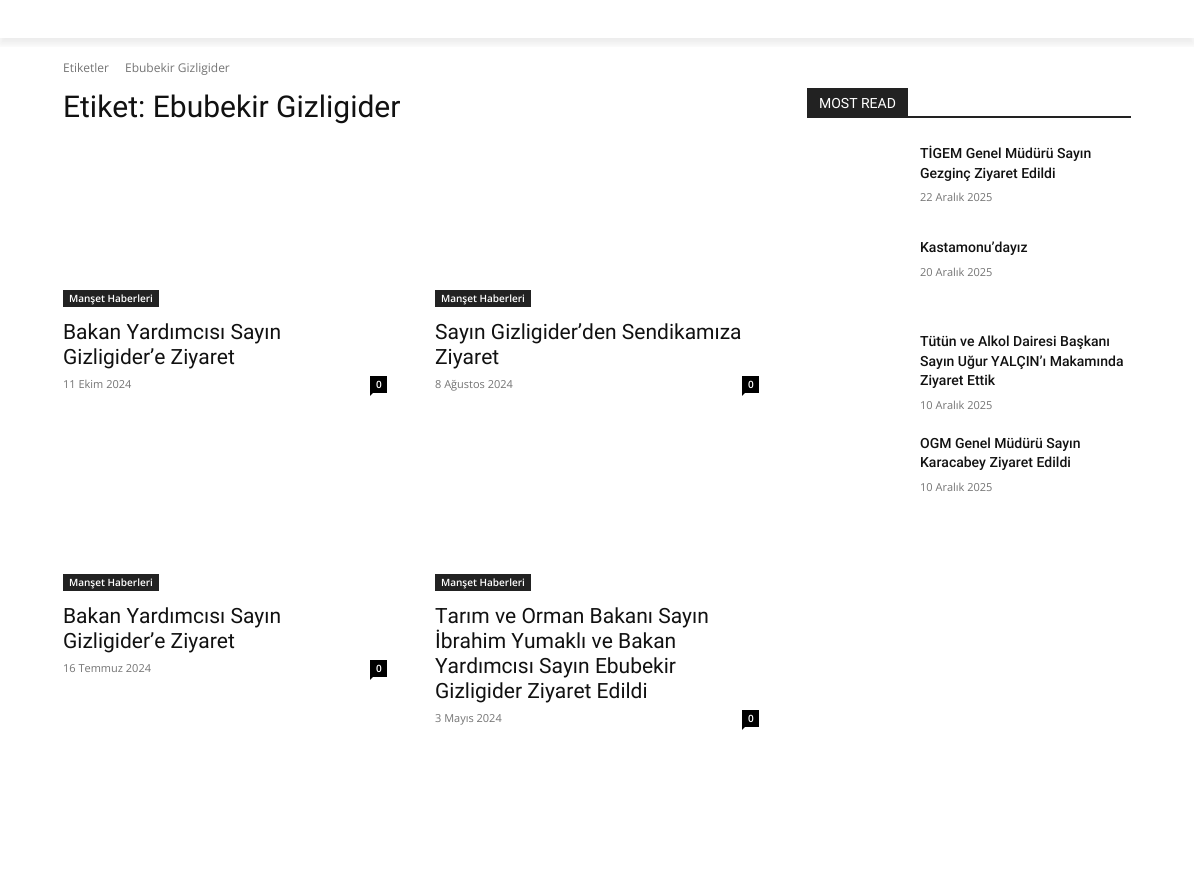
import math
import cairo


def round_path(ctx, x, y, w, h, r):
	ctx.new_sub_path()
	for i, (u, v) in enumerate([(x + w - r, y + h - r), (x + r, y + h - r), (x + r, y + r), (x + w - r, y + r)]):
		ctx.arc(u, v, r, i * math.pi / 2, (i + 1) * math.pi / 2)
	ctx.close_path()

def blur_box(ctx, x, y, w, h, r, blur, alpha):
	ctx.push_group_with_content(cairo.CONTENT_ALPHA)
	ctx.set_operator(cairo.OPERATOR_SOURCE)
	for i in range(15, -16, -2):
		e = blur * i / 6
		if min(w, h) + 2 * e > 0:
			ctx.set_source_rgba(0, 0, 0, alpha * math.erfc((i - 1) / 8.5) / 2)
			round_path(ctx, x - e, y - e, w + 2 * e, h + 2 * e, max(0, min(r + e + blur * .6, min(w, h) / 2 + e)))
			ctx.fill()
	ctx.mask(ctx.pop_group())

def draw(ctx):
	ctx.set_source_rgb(1, 1, 1)
	ctx.paint()
	ctx.save()
	ctx.rectangle(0, 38, 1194, 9)
	ctx.clip()
	ctx.set_source_rgb(0, 0, 0)
	blur_box(ctx, 0, -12, 1194, 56, 0, 4, 0.08)
	ctx.restore()
	ctx.select_font_face('Open Sans')
	ctx.set_font_size(12)
	ctx.set_source_rgb(0.455, 0.455, 0.455)
	ctx.move_to(63, 72)
	ctx.show_text('Etiketler')
	ctx.move_to(125, 72)
	ctx.show_text('Ebubekir Gizligider')
	ctx.select_font_face('Roboto')
	ctx.set_font_size(30)
	ctx.set_source_rgb(0.067, 0.067, 0.067)
	ctx.move_to(63, 117)
	ctx.show_text('Etiket: Ebubekir Gizligider')
	ctx.set_source_rgb(0.133, 0.133, 0.133)
	ctx.rectangle(63, 290, 96, 17)
	ctx.fill()
	ctx.select_font_face('Open Sans SemiBold')
	ctx.set_font_size(10)
	ctx.set_source_rgb(1, 1, 1)
	ctx.move_to(69, 302)
	ctx.show_text('Manşet Haberleri')
	ctx.select_font_face('Roboto')
	ctx.set_font_size(21)
	ctx.set_source_rgb(0.067, 0.067, 0.067)
	ctx.move_to(63, 339)
	ctx.show_text('Bakan Yardımcısı Sayın')
	ctx.move_to(63, 364)
	ctx.show_text('Gizligider’e Ziyaret')
	ctx.select_font_face('Open Sans')
	ctx.set_font_size(11)
	ctx.set_source_rgb(0.455, 0.455, 0.455)
	ctx.move_to(63, 388)
	ctx.show_text('11 Ekim 2024')
	ctx.set_source_rgb(0, 0, 0)
	ctx.rectangle(370, 376, 17, 17)
	ctx.fill()
	ctx.select_font_face('Open Sans SemiBold')
	ctx.set_font_size(10)
	ctx.set_source_rgb(1, 1, 1)
	ctx.move_to(376, 388)
	ctx.show_text('0')
	ctx.set_source_rgb(0, 0, 0)
	ctx.new_path()
	ctx.move_to(370, 393)
	ctx.line_to(373, 393)
	ctx.line_to(370, 396)
	ctx.close_path()
	ctx.fill()
	ctx.set_source_rgb(0.133, 0.133, 0.133)
	ctx.rectangle(435, 290, 96, 17)
	ctx.fill()
	ctx.set_source_rgb(1, 1, 1)
	ctx.move_to(441, 302)
	ctx.show_text('Manşet Haberleri')
	ctx.select_font_face('Roboto')
	ctx.set_font_size(21)
	ctx.set_source_rgb(0.067, 0.067, 0.067)
	ctx.move_to(435, 339)
	ctx.show_text('Sayın Gizligider’den Sendikamıza')
	ctx.move_to(435, 364)
	ctx.show_text('Ziyaret')
	ctx.select_font_face('Open Sans')
	ctx.set_font_size(11)
	ctx.set_source_rgb(0.455, 0.455, 0.455)
	ctx.move_to(435, 388)
	ctx.show_text('8 Ağustos 2024')
	ctx.set_source_rgb(0, 0, 0)
	ctx.rectangle(742, 376, 17, 17)
	ctx.fill()
	ctx.select_font_face('Open Sans SemiBold')
	ctx.set_font_size(10)
	ctx.set_source_rgb(1, 1, 1)
	ctx.move_to(748, 388)
	ctx.show_text('0')
	ctx.set_source_rgb(0, 0, 0)
	ctx.new_path()
	ctx.move_to(742, 393)
	ctx.line_to(745, 393)
	ctx.line_to(742, 396)
	ctx.close_path()
	ctx.fill()
	ctx.set_source_rgb(0.133, 0.133, 0.133)
	ctx.rectangle(63, 574, 96, 17)
	ctx.fill()
	ctx.set_source_rgb(1, 1, 1)
	ctx.move_to(69, 586)
	ctx.show_text('Manşet Haberleri')
	ctx.select_font_face('Roboto')
	ctx.set_font_size(21)
	ctx.set_source_rgb(0.067, 0.067, 0.067)
	ctx.move_to(63, 623)
	ctx.show_text('Bakan Yardımcısı Sayın')
	ctx.move_to(63, 648)
	ctx.show_text('Gizligider’e Ziyaret')
	ctx.select_font_face('Open Sans')
	ctx.set_font_size(11)
	ctx.set_source_rgb(0.455, 0.455, 0.455)
	ctx.move_to(63, 672)
	ctx.show_text('16 Temmuz 2024')
	ctx.set_source_rgb(0, 0, 0)
	ctx.rectangle(370, 660, 17, 17)
	ctx.fill()
	ctx.select_font_face('Open Sans SemiBold')
	ctx.set_font_size(10)
	ctx.set_source_rgb(1, 1, 1)
	ctx.move_to(376, 672)
	ctx.show_text('0')
	ctx.set_source_rgb(0, 0, 0)
	ctx.new_path()
	ctx.move_to(370, 677)
	ctx.line_to(373, 677)
	ctx.line_to(370, 680)
	ctx.close_path()
	ctx.fill()
	ctx.set_source_rgb(0.133, 0.133, 0.133)
	ctx.rectangle(435, 574, 96, 17)
	ctx.fill()
	ctx.set_source_rgb(1, 1, 1)
	ctx.move_to(441, 586)
	ctx.show_text('Manşet Haberleri')
	ctx.select_font_face('Roboto')
	ctx.set_font_size(21)
	ctx.set_source_rgb(0.067, 0.067, 0.067)
	for x, y, s in [
		(435, 623, 'Tarım ve Orman Bakanı Sayın'),
		(435, 648, 'İbrahim Yumaklı ve Bakan'),
		(435, 673, 'Yardımcısı Sayın Ebubekir'),
		(435, 698, 'Gizligider Ziyaret Edildi'),
	]:
		ctx.move_to(x, y)
		ctx.show_text(s)
	ctx.select_font_face('Open Sans')
	ctx.set_font_size(11)
	ctx.set_source_rgb(0.455, 0.455, 0.455)
	ctx.move_to(435, 722)
	ctx.show_text('3 Mayıs 2024')
	ctx.set_source_rgb(0, 0, 0)
	ctx.rectangle(742, 710, 17, 17)
	ctx.fill()
	ctx.select_font_face('Open Sans SemiBold')
	ctx.set_font_size(10)
	ctx.set_source_rgb(1, 1, 1)
	ctx.move_to(748, 722)
	ctx.show_text('0')
	ctx.set_source_rgb(0, 0, 0)
	ctx.new_path()
	ctx.move_to(742, 727)
	ctx.line_to(745, 727)
	ctx.line_to(742, 730)
	ctx.close_path()
	ctx.fill()
	ctx.set_source_rgb(0.133, 0.133, 0.133)
	ctx.rectangle(807, 116, 324, 2)
	ctx.fill()
	ctx.rectangle(807, 88, 101, 28)
	ctx.fill()
	ctx.select_font_face('Roboto')
	ctx.set_font_size(14)
	ctx.set_source_rgb(1, 1, 1)
	ctx.move_to(819, 108)
	ctx.show_text('MOST READ')
	ctx.select_font_face('Roboto Medium')
	ctx.set_source_rgb(0.067, 0.067, 0.067)
	ctx.move_to(920, 158)
	ctx.show_text('TİGEM Genel Müdürü Sayın')
	ctx.move_to(920, 178)
	ctx.show_text('Gezginç Ziyaret Edildi')
	ctx.select_font_face('Open Sans')
	ctx.set_font_size(11)
	ctx.set_source_rgb(0.455, 0.455, 0.455)
	ctx.move_to(920, 201)
	ctx.show_text('22 Aralık 2025')
	ctx.select_font_face('Roboto Medium')
	ctx.set_font_size(14)
	ctx.set_source_rgb(0.067, 0.067, 0.067)
	ctx.move_to(920, 252)
	ctx.show_text('Kastamonu’dayız')
	ctx.select_font_face('Open Sans')
	ctx.set_font_size(11)
	ctx.set_source_rgb(0.455, 0.455, 0.455)
	ctx.move_to(920, 276)
	ctx.show_text('20 Aralık 2025')
	ctx.select_font_face('Roboto Medium')
	ctx.set_font_size(14)
	ctx.set_source_rgb(0.067, 0.067, 0.067)
	for x, y, s in [
		(920, 346, 'Tütün ve Alkol Dairesi Başkanı'),
		(920, 366, 'Sayın Uğur YALÇIN’ı Makamında'),
		(920, 385, 'Ziyaret Ettik'),
	]:
		ctx.move_to(x, y)
		ctx.show_text(s)
	ctx.select_font_face('Open Sans')
	ctx.set_font_size(11)
	ctx.set_source_rgb(0.455, 0.455, 0.455)
	ctx.move_to(920, 409)
	ctx.show_text('10 Aralık 2025')
	ctx.select_font_face('Roboto Medium')
	ctx.set_font_size(14)
	ctx.set_source_rgb(0.067, 0.067, 0.067)
	ctx.move_to(920, 448)
	ctx.show_text('OGM Genel Müdürü Sayın')
	ctx.move_to(920, 467)
	ctx.show_text('Karacabey Ziyaret Edildi')
	ctx.select_font_face('Open Sans')
	ctx.set_font_size(11)
	ctx.set_source_rgb(0.455, 0.455, 0.455)
	ctx.move_to(920, 491)
	ctx.show_text('10 Aralık 2025')


surface = cairo.ImageSurface(cairo.FORMAT_RGB24, 1194, 870)
ctx = cairo.Context(surface)
options = cairo.FontOptions()
options.set_hint_metrics(cairo.HINT_METRICS_OFF)
options.set_hint_style(cairo.HINT_STYLE_NONE)
ctx.set_font_options(options)
ctx.set_miter_limit(4)
draw(ctx)
surface.write_to_png('image.png')
